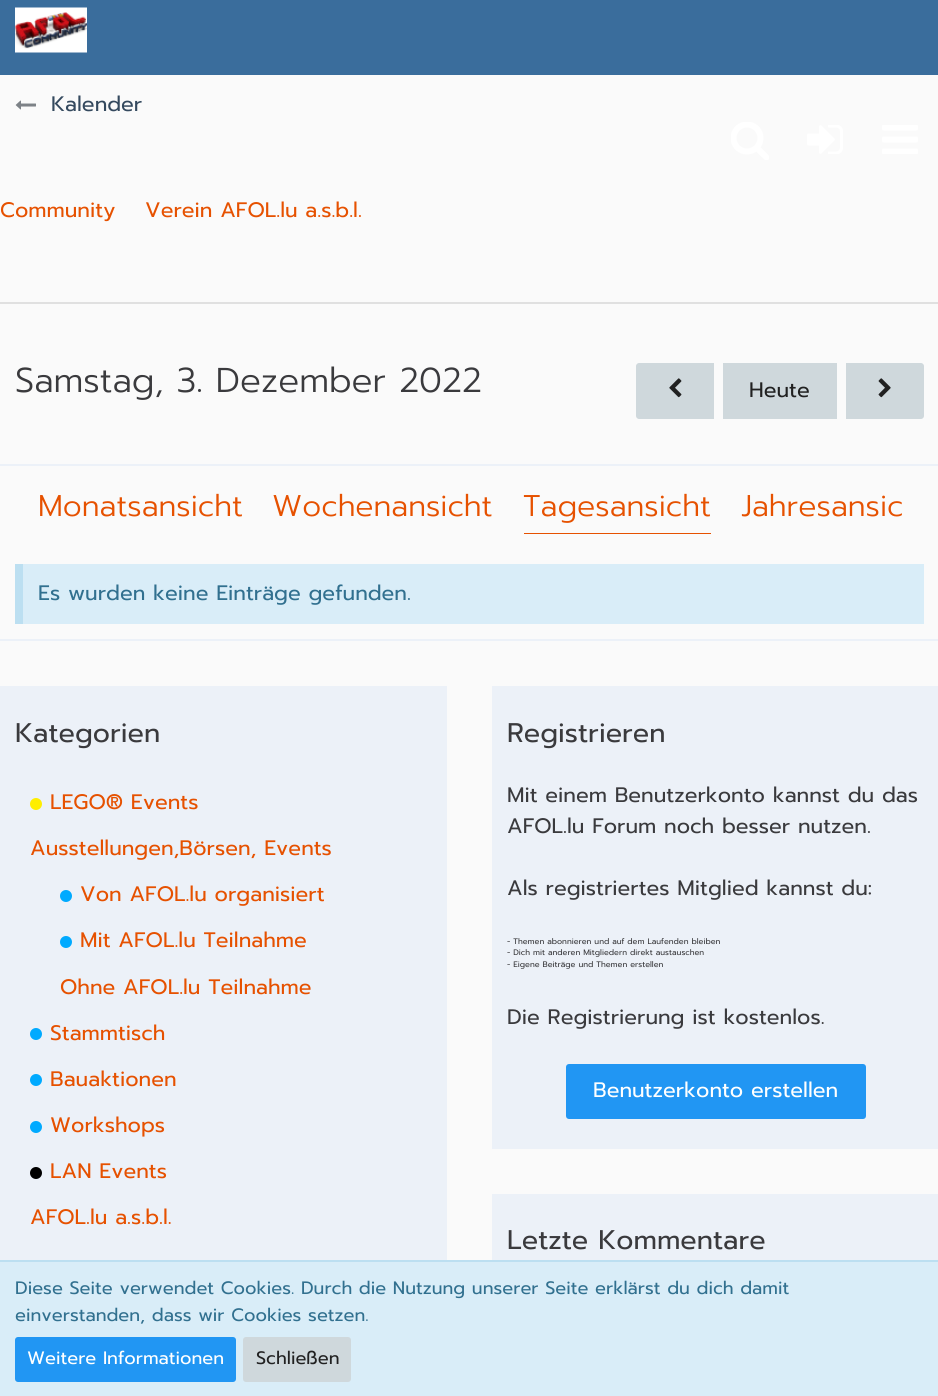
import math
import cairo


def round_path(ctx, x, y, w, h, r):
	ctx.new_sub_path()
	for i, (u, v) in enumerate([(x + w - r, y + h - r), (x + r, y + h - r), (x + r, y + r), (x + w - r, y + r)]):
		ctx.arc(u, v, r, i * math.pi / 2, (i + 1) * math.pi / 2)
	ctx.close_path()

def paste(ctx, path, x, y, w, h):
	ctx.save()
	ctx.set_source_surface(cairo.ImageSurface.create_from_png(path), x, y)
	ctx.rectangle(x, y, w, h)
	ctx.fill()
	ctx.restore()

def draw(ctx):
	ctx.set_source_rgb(0.98, 0.98, 0.98)
	ctx.paint()
	ctx.set_source_rgb(0.227, 0.427, 0.612)
	ctx.rectangle(0, 0, 938, 75)
	ctx.fill()
	paste(ctx, 'media/1.png', 15, 7, 72, 46)
	paste(ctx, 'media/2.png', 731, 122, 38, 38)
	paste(ctx, 'media/3.png', 807, 125, 36, 29)
	paste(ctx, 'media/4.png', 882, 125, 36, 29)
	paste(ctx, 'media/5.png', 15, 100, 21, 10)
	ctx.select_font_face('Prompt')
	ctx.set_font_size(21)
	ctx.set_source_rgb(0.204, 0.286, 0.369)
	ctx.move_to(51, 111)
	ctx.show_text('Kalender')
	ctx.set_source_rgb(0.878, 0.878, 0.878)
	ctx.rectangle(0, 302, 938, 2)
	ctx.fill()
	ctx.set_source_rgb(0.902, 0.318, 0)
	ctx.move_to(0, 217)
	ctx.show_text('Community')
	ctx.move_to(145, 217)
	ctx.show_text('Verein AFOL.lu a.s.b.l.')
	ctx.select_font_face('Prompt Light')
	ctx.set_font_size(34.5)
	ctx.set_source_rgb(0.227, 0.227, 0.239)
	ctx.move_to(15, 392)
	ctx.show_text('Samstag, 3. Dezember 2022')
	ctx.set_source_rgb(0.812, 0.847, 0.863)
	ctx.new_path()
	ctx.move_to(639, 363)
	ctx.line_to(714, 363)
	ctx.line_to(714, 419)
	ctx.line_to(639, 419)
	ctx.curve_to(637.5, 419, 636, 417.5, 636, 416)
	ctx.line_to(636, 366)
	ctx.curve_to(636, 364.5, 637.5, 363, 639, 363)
	ctx.close_path()
	ctx.fill()
	paste(ctx, 'media/6.png', 669, 378, 13, 20)
	ctx.rectangle(723, 363, 114, 56)
	ctx.fill()
	ctx.select_font_face('Prompt')
	ctx.set_font_size(21)
	ctx.set_source_rgb(0.129, 0.129, 0.129)
	ctx.move_to(749, 397)
	ctx.show_text('Heute')
	ctx.set_source_rgb(0.812, 0.847, 0.863)
	ctx.new_path()
	ctx.move_to(846, 363)
	ctx.line_to(921, 363)
	ctx.curve_to(922.5, 363, 924, 364.5, 924, 366)
	ctx.line_to(924, 416)
	ctx.curve_to(924, 417.5, 922.5, 419, 921, 419)
	ctx.line_to(846, 419)
	ctx.close_path()
	ctx.fill()
	paste(ctx, 'media/7.png', 878, 378, 13, 20)
	ctx.set_source_rgb(0.925, 0.945, 0.969)
	ctx.rectangle(0, 464, 938, 2)
	ctx.fill()
	ctx.rectangle(0, 639, 938, 2)
	ctx.fill()
	ctx.select_font_face('Prompt Light')
	ctx.set_font_size(30)
	ctx.set_source_rgb(0.902, 0.318, 0)
	for x, y, s in [
		(38, 516, 'Monatsansicht'),
		(272, 516, 'Wochenansicht'),
		(523, 516, 'Tagesansicht'),
	]:
		ctx.move_to(x, y)
		ctx.show_text(s)
	ctx.rectangle(524, 533, 187, 1)
	ctx.fill()
	ctx.move_to(741, 516)
	ctx.show_text('Jahresansic')
	ctx.set_source_rgb(0.851, 0.929, 0.969)
	ctx.rectangle(23, 564, 901, 60)
	ctx.fill()
	ctx.set_source_rgb(0.737, 0.875, 0.945)
	ctx.rectangle(15, 564, 8, 60)
	ctx.fill()
	ctx.select_font_face('Prompt')
	ctx.set_font_size(21)
	ctx.set_source_rgb(0.192, 0.439, 0.561)
	ctx.move_to(38, 600)
	ctx.show_text('Es wurden keine Einträge gefunden.')
	ctx.set_source_rgb(0.925, 0.945, 0.969)
	ctx.rectangle(0, 686, 447, 574)
	ctx.fill()
	ctx.set_font_size(27)
	ctx.set_source_rgb(0.227, 0.227, 0.239)
	ctx.move_to(15, 742)
	ctx.show_text('Kategorien')
	ctx.set_source_rgb(1, 0.933, 0)
	ctx.new_path()
	ctx.arc(36, 804, 6, 0, 2 * math.pi)
	ctx.fill()
	ctx.set_font_size(21)
	ctx.set_source_rgb(0.902, 0.318, 0)
	ctx.move_to(50, 809)
	ctx.show_text('LEGO® Events')
	ctx.move_to(30, 855)
	ctx.show_text('Ausstellungen,Börsen, Events')
	ctx.set_source_rgb(0, 0.667, 1)
	ctx.new_path()
	ctx.arc(66, 896, 6, 0, 2 * math.pi)
	ctx.fill()
	ctx.set_source_rgb(0.902, 0.318, 0)
	ctx.move_to(80, 901)
	ctx.show_text('Von AFOL.lu organisiert')
	ctx.set_source_rgb(0, 0.667, 1)
	ctx.new_path()
	ctx.arc(66, 942, 6, 0, 2 * math.pi)
	ctx.fill()
	ctx.set_source_rgb(0.902, 0.318, 0)
	ctx.move_to(80, 947)
	ctx.show_text('Mit AFOL.lu Teilnahme')
	ctx.move_to(60, 994)
	ctx.show_text('Ohne AFOL.lu Teilnahme')
	ctx.set_source_rgb(0, 0.667, 1)
	ctx.new_path()
	ctx.arc(36, 1034, 6, 0, 2 * math.pi)
	ctx.fill()
	ctx.set_source_rgb(0.902, 0.318, 0)
	ctx.move_to(50, 1040)
	ctx.show_text('Stammtisch')
	ctx.set_source_rgb(0, 0.667, 1)
	ctx.new_path()
	ctx.arc(36, 1080, 6, 0, 2 * math.pi)
	ctx.fill()
	ctx.set_source_rgb(0.902, 0.318, 0)
	ctx.move_to(50, 1086)
	ctx.show_text('Bauaktionen')
	ctx.set_source_rgb(0, 0.667, 1)
	ctx.new_path()
	ctx.arc(36, 1127, 6, 0, 2 * math.pi)
	ctx.fill()
	ctx.set_source_rgb(0.902, 0.318, 0)
	ctx.move_to(50, 1132)
	ctx.show_text('Workshops')
	ctx.set_source_rgb(0, 0, 0)
	ctx.new_path()
	ctx.arc(36, 1173, 6, 0, 2 * math.pi)
	ctx.fill()
	ctx.set_source_rgb(0.902, 0.318, 0)
	ctx.move_to(50, 1178)
	ctx.show_text('LAN Events')
	ctx.move_to(30, 1224)
	ctx.show_text('AFOL.lu a.s.b.l.')
	ctx.set_source_rgb(0.925, 0.945, 0.969)
	ctx.rectangle(492, 686, 446, 463)
	ctx.fill()
	ctx.set_font_size(27)
	ctx.set_source_rgb(0.227, 0.227, 0.239)
	ctx.move_to(507, 742)
	ctx.show_text('Registrieren')
	ctx.set_font_size(21)
	for x, y, s in [
		(507, 802, 'Mit einem Benutzerkonto kannst du das'),
		(507, 833, 'AFOL.lu Forum noch besser nutzen.'),
		(507, 895, 'Als registriertes Mitglied kannst du:'),
	]:
		ctx.move_to(x, y)
		ctx.show_text(s)
	ctx.set_font_size(8)
	for x, y, s in [
		(507, 944, '- Themen abonnieren und auf dem Laufenden bleiben'),
		(507, 955, '- Dich mit anderen Mitgliedern direkt austauschen'),
		(507, 967, '- Eigene Beiträge und Themen erstellen'),
	]:
		ctx.move_to(x, y)
		ctx.show_text(s)
	ctx.set_font_size(21)
	ctx.move_to(507, 1024)
	ctx.show_text('Die Registrierung ist kostenlos.')
	ctx.set_source_rgb(0.129, 0.588, 0.953)
	round_path(ctx, 566, 1064, 300, 55, 3)
	ctx.fill()
	ctx.set_source_rgb(1, 1, 1)
	ctx.move_to(593, 1097)
	ctx.show_text('Benutzerkonto erstellen')
	ctx.set_source_rgb(0.925, 0.945, 0.969)
	ctx.rectangle(492, 1194, 446, 66)
	ctx.fill()
	ctx.set_font_size(27)
	ctx.set_source_rgb(0.227, 0.227, 0.239)
	ctx.move_to(507, 1249)
	ctx.show_text('Letzte Kommentare')
	ctx.set_source_rgb(0.851, 0.929, 0.969)
	ctx.rectangle(0, 1262, 938, 134)
	ctx.fill()
	ctx.set_source_rgb(0.737, 0.875, 0.945)
	ctx.rectangle(0, 1260, 938, 2)
	ctx.fill()
	ctx.set_font_size(18)
	ctx.set_source_rgb(0.192, 0.439, 0.561)
	ctx.move_to(15, 1294)
	ctx.show_text('Diese Seite verwendet Cookies. Durch die Nutzung unserer Seite erklärst du dich damit')
	ctx.move_to(15, 1321)
	ctx.show_text('einverstanden, dass wir Cookies setzen.')
	ctx.set_source_rgb(0.129, 0.588, 0.953)
	round_path(ctx, 15, 1337, 221, 45, 3)
	ctx.fill()
	ctx.set_source_rgb(1, 1, 1)
	ctx.move_to(27, 1364)
	ctx.show_text('Weitere Informationen')
	ctx.set_source_rgb(0.812, 0.847, 0.863)
	round_path(ctx, 243, 1337, 108, 45, 3)
	ctx.fill()
	ctx.set_source_rgb(0.129, 0.129, 0.129)
	ctx.move_to(256, 1364)
	ctx.show_text('Schließen')


surface = cairo.ImageSurface(cairo.FORMAT_RGB24, 938, 1396)
ctx = cairo.Context(surface)
options = cairo.FontOptions()
options.set_hint_metrics(cairo.HINT_METRICS_OFF)
options.set_hint_style(cairo.HINT_STYLE_NONE)
ctx.set_font_options(options)
ctx.set_miter_limit(4)
draw(ctx)
surface.write_to_png('image.png')
